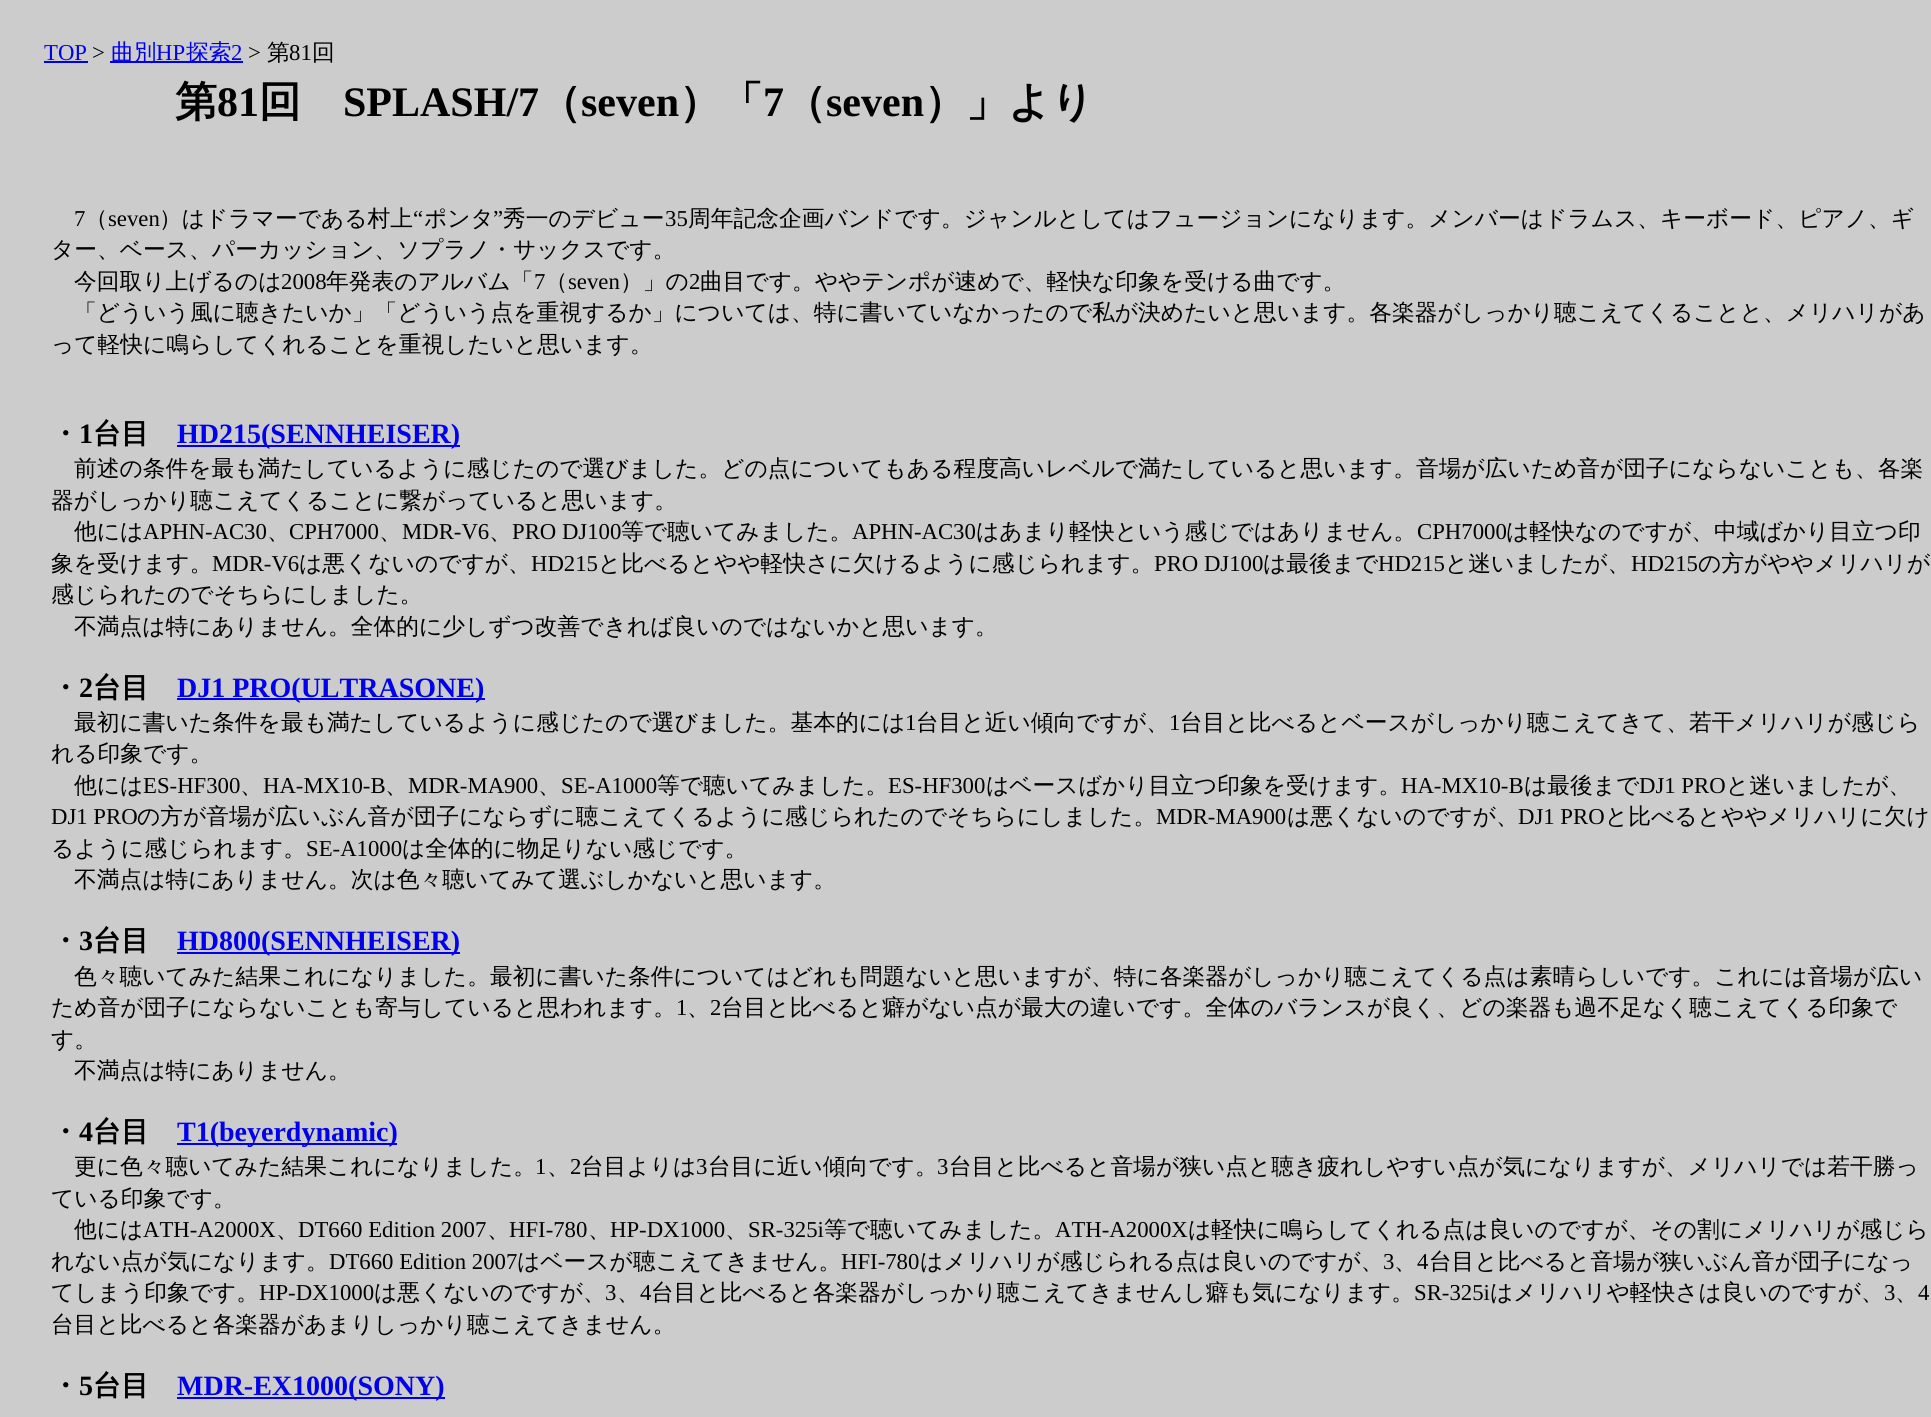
import math
import cairo


def draw(ctx):
	ctx.set_source_rgb(0.8, 0.8, 0.8)
	ctx.paint()
	ctx.select_font_face('Liberation Serif')
	ctx.set_font_size(22.75)
	ctx.set_source_rgb(0, 0, 0.933)
	ctx.move_to(44, 60)
	ctx.show_text('TOP')
	ctx.rectangle(44, 61, 44, 2)
	ctx.fill()
	ctx.set_source_rgb(0, 0, 0)
	ctx.move_to(92, 60)
	ctx.show_text('>')
	ctx.set_source_rgb(0, 0, 0.933)
	ctx.rectangle(110, 61, 133, 2)
	ctx.fill()
	ctx.select_font_face('WenQuanYi Zen Hei Medium')
	ctx.move_to(111, 60)
	ctx.show_text('曲別')
	ctx.select_font_face('Liberation Serif')
	ctx.move_to(156, 60)
	ctx.show_text('HP')
	ctx.select_font_face('WenQuanYi Zen Hei Medium')
	ctx.move_to(186, 60)
	ctx.show_text('探索')
	ctx.select_font_face('Liberation Serif')
	ctx.move_to(231, 60)
	ctx.show_text('2')
	ctx.set_source_rgb(0, 0, 0)
	ctx.move_to(248, 60)
	ctx.show_text('>')
	ctx.select_font_face('WenQuanYi Zen Hei Medium')
	ctx.move_to(267, 60)
	ctx.show_text('第')
	ctx.select_font_face('Liberation Serif')
	ctx.move_to(289, 60)
	ctx.show_text('81')
	ctx.select_font_face('WenQuanYi Zen Hei Medium')
	ctx.move_to(312, 60)
	ctx.show_text('回')
	ctx.select_font_face('WenQuanYi Zen Hei', cairo.FONT_SLANT_NORMAL, cairo.FONT_WEIGHT_BOLD)
	ctx.set_font_size(42)
	ctx.move_to(175, 116)
	ctx.show_text('第')
	ctx.select_font_face('Liberation Serif', cairo.FONT_SLANT_NORMAL, cairo.FONT_WEIGHT_BOLD)
	ctx.move_to(217, 116)
	ctx.show_text('81')
	ctx.select_font_face('WenQuanYi Zen Hei', cairo.FONT_SLANT_NORMAL, cairo.FONT_WEIGHT_BOLD)
	ctx.move_to(259, 116)
	ctx.show_text('回')
	ctx.select_font_face('Liberation Serif', cairo.FONT_SLANT_NORMAL, cairo.FONT_WEIGHT_BOLD)
	ctx.move_to(343, 116)
	ctx.show_text('SPLASH/7')
	ctx.select_font_face('WenQuanYi Zen Hei', cairo.FONT_SLANT_NORMAL, cairo.FONT_WEIGHT_BOLD)
	ctx.move_to(539, 116)
	ctx.show_text('（')
	ctx.select_font_face('Liberation Serif', cairo.FONT_SLANT_NORMAL, cairo.FONT_WEIGHT_BOLD)
	ctx.move_to(581, 116)
	ctx.show_text('seven')
	ctx.select_font_face('WenQuanYi Zen Hei', cairo.FONT_SLANT_NORMAL, cairo.FONT_WEIGHT_BOLD)
	ctx.move_to(679, 116)
	ctx.show_text('）「')
	ctx.select_font_face('Liberation Serif', cairo.FONT_SLANT_NORMAL, cairo.FONT_WEIGHT_BOLD)
	ctx.move_to(763, 116)
	ctx.show_text('7')
	ctx.select_font_face('WenQuanYi Zen Hei', cairo.FONT_SLANT_NORMAL, cairo.FONT_WEIGHT_BOLD)
	ctx.move_to(784, 116)
	ctx.show_text('（')
	ctx.select_font_face('Liberation Serif', cairo.FONT_SLANT_NORMAL, cairo.FONT_WEIGHT_BOLD)
	ctx.move_to(826, 116)
	ctx.show_text('seven')
	ctx.select_font_face('WenQuanYi Zen Hei', cairo.FONT_SLANT_NORMAL, cairo.FONT_WEIGHT_BOLD)
	ctx.move_to(924, 116)
	ctx.show_text('）」より')
	ctx.select_font_face('Liberation Serif')
	ctx.set_font_size(22.75)
	ctx.move_to(74, 226)
	ctx.show_text('7')
	ctx.select_font_face('WenQuanYi Zen Hei Medium')
	ctx.move_to(85, 226)
	ctx.show_text('（')
	ctx.select_font_face('Liberation Serif')
	ctx.move_to(108, 226)
	ctx.show_text('seven')
	ctx.select_font_face('WenQuanYi Zen Hei Medium')
	ctx.move_to(159, 226)
	ctx.show_text('）はドラマーである村上')
	ctx.select_font_face('Liberation Serif')
	ctx.move_to(413, 226)
	ctx.show_text('“')
	ctx.select_font_face('WenQuanYi Zen Hei Medium')
	ctx.move_to(424, 226)
	ctx.show_text('ポンタ')
	ctx.select_font_face('Liberation Serif')
	ctx.move_to(493, 226)
	ctx.show_text('”')
	ctx.select_font_face('WenQuanYi Zen Hei Medium')
	ctx.move_to(503, 226)
	ctx.show_text('秀一のデビュー')
	ctx.select_font_face('Liberation Serif')
	ctx.move_to(665, 226)
	ctx.show_text('35')
	ctx.select_font_face('WenQuanYi Zen Hei Medium')
	for x, y, s in [
		(688, 226, '周年記念企画バンドです。ジャンルとしてはフュージョンになります。メンバーはドラムス、キーボード、ピアノ、ギ'),
		(51, 257, 'ター、ベース、パーカッション、ソプラノ・サックスです。'),
		(74, 289, '今回取り上げるのは'),
	]:
		ctx.move_to(x, y)
		ctx.show_text(s)
	ctx.select_font_face('Liberation Serif')
	ctx.move_to(281, 289)
	ctx.show_text('2008')
	ctx.select_font_face('WenQuanYi Zen Hei Medium')
	ctx.move_to(326, 289)
	ctx.show_text('年発表のアルバム「')
	ctx.select_font_face('Liberation Serif')
	ctx.move_to(534, 289)
	ctx.show_text('7')
	ctx.select_font_face('WenQuanYi Zen Hei Medium')
	ctx.move_to(545, 289)
	ctx.show_text('（')
	ctx.select_font_face('Liberation Serif')
	ctx.move_to(568, 289)
	ctx.show_text('seven')
	ctx.select_font_face('WenQuanYi Zen Hei Medium')
	ctx.move_to(620, 289)
	ctx.show_text('）」の')
	ctx.select_font_face('Liberation Serif')
	ctx.move_to(689, 289)
	ctx.show_text('2')
	ctx.select_font_face('WenQuanYi Zen Hei Medium')
	for x, y, s in [
		(700, 289, '曲目です。ややテンポが速めで、軽快な印象を受ける曲です。'),
		(74, 320, '「どういう風に聴きたいか」「どういう点を重視するか」については、特に書いていなかったので私が決めたいと思います。各楽器がしっかり聴こえてくることと、メリハリがあ'),
		(51, 352, 'って軽快に鳴らしてくれることを重視したいと思います。'),
	]:
		ctx.move_to(x, y)
		ctx.show_text(s)
	ctx.select_font_face('WenQuanYi Zen Hei', cairo.FONT_SLANT_NORMAL, cairo.FONT_WEIGHT_BOLD)
	ctx.set_font_size(28)
	ctx.move_to(51, 443)
	ctx.show_text('・')
	ctx.select_font_face('Liberation Serif', cairo.FONT_SLANT_NORMAL, cairo.FONT_WEIGHT_BOLD)
	ctx.move_to(79, 443)
	ctx.show_text('1')
	ctx.select_font_face('WenQuanYi Zen Hei', cairo.FONT_SLANT_NORMAL, cairo.FONT_WEIGHT_BOLD)
	ctx.move_to(93, 443)
	ctx.show_text('台目')
	ctx.set_source_rgb(0, 0, 0.933)
	ctx.rectangle(177, 445, 283, 2)
	ctx.fill()
	ctx.select_font_face('Liberation Serif', cairo.FONT_SLANT_NORMAL, cairo.FONT_WEIGHT_BOLD)
	ctx.move_to(177, 443)
	ctx.show_text('HD215(SENNHEISER)')
	ctx.select_font_face('WenQuanYi Zen Hei Medium')
	ctx.set_font_size(22.75)
	ctx.set_source_rgb(0, 0, 0)
	for x, y, s in [
		(74, 476, '前述の条件を最も満たしているように感じたので選びました。どの点についてもある程度高いレベルで満たしていると思います。音場が広いため音が団子にならないことも、各楽'),
		(51, 508, '器がしっかり聴こえてくることに繋がっていると思います。'),
		(74, 539, '他には'),
	]:
		ctx.move_to(x, y)
		ctx.show_text(s)
	ctx.select_font_face('Liberation Serif')
	ctx.move_to(143, 539)
	ctx.show_text('APHN-AC30')
	ctx.select_font_face('WenQuanYi Zen Hei Medium')
	ctx.move_to(267, 539)
	ctx.show_text('、')
	ctx.select_font_face('Liberation Serif')
	ctx.move_to(289, 539)
	ctx.show_text('CPH7000')
	ctx.select_font_face('WenQuanYi Zen Hei Medium')
	ctx.move_to(379, 539)
	ctx.show_text('、')
	ctx.select_font_face('Liberation Serif')
	ctx.move_to(402, 539)
	ctx.show_text('MDR-V6')
	ctx.select_font_face('WenQuanYi Zen Hei Medium')
	ctx.move_to(489, 539)
	ctx.show_text('、')
	ctx.select_font_face('Liberation Serif')
	ctx.move_to(512, 539)
	ctx.show_text('PRO DJ100')
	ctx.select_font_face('WenQuanYi Zen Hei Medium')
	ctx.move_to(621, 539)
	ctx.show_text('等で聴いてみました。')
	ctx.select_font_face('Liberation Serif')
	ctx.move_to(852, 539)
	ctx.show_text('APHN-AC30')
	ctx.select_font_face('WenQuanYi Zen Hei Medium')
	ctx.move_to(976, 539)
	ctx.show_text('はあまり軽快という感じではありません。')
	ctx.select_font_face('Liberation Serif')
	ctx.move_to(1417, 539)
	ctx.show_text('CPH7000')
	ctx.select_font_face('WenQuanYi Zen Hei Medium')
	ctx.move_to(1506, 539)
	ctx.show_text('は軽快なのですが、中域ばかり目立つ印')
	ctx.move_to(51, 571)
	ctx.show_text('象を受けます。')
	ctx.select_font_face('Liberation Serif')
	ctx.move_to(212, 571)
	ctx.show_text('MDR-V6')
	ctx.select_font_face('WenQuanYi Zen Hei Medium')
	ctx.move_to(299, 571)
	ctx.show_text('は悪くないのですが、')
	ctx.select_font_face('Liberation Serif')
	ctx.move_to(531, 571)
	ctx.show_text('HD215')
	ctx.select_font_face('WenQuanYi Zen Hei Medium')
	ctx.move_to(598, 571)
	ctx.show_text('と比べるとやや軽快さに欠けるように感じられます。')
	ctx.select_font_face('Liberation Serif')
	ctx.move_to(1154, 571)
	ctx.show_text('PRO DJ100')
	ctx.select_font_face('WenQuanYi Zen Hei Medium')
	ctx.move_to(1263, 571)
	ctx.show_text('は最後まで')
	ctx.select_font_face('Liberation Serif')
	ctx.move_to(1378, 571)
	ctx.show_text('HD215')
	ctx.select_font_face('WenQuanYi Zen Hei Medium')
	ctx.move_to(1445, 571)
	ctx.show_text('と迷いましたが、')
	ctx.select_font_face('Liberation Serif')
	ctx.move_to(1631, 571)
	ctx.show_text('HD215')
	ctx.select_font_face('WenQuanYi Zen Hei Medium')
	for x, y, s in [
		(1698, 571, 'の方がややメリハリが'),
		(51, 602, '感じられたのでそちらにしました。'),
		(74, 634, '不満点は特にありません。全体的に少しずつ改善できれば良いのではないかと思います。'),
	]:
		ctx.move_to(x, y)
		ctx.show_text(s)
	ctx.select_font_face('WenQuanYi Zen Hei', cairo.FONT_SLANT_NORMAL, cairo.FONT_WEIGHT_BOLD)
	ctx.set_font_size(28)
	ctx.move_to(51, 697)
	ctx.show_text('・')
	ctx.select_font_face('Liberation Serif', cairo.FONT_SLANT_NORMAL, cairo.FONT_WEIGHT_BOLD)
	ctx.move_to(79, 697)
	ctx.show_text('2')
	ctx.select_font_face('WenQuanYi Zen Hei', cairo.FONT_SLANT_NORMAL, cairo.FONT_WEIGHT_BOLD)
	ctx.move_to(93, 697)
	ctx.show_text('台目')
	ctx.set_source_rgb(0, 0, 0.933)
	ctx.rectangle(177, 698, 308, 2)
	ctx.fill()
	ctx.select_font_face('Liberation Serif', cairo.FONT_SLANT_NORMAL, cairo.FONT_WEIGHT_BOLD)
	ctx.move_to(177, 697)
	ctx.show_text('DJ1 PRO(ULTRASONE)')
	ctx.select_font_face('WenQuanYi Zen Hei Medium')
	ctx.set_font_size(22.75)
	ctx.set_source_rgb(0, 0, 0)
	ctx.move_to(74, 730)
	ctx.show_text('最初に書いた条件を最も満たしているように感じたので選びました。基本的には')
	ctx.select_font_face('Liberation Serif')
	ctx.move_to(905, 730)
	ctx.show_text('1')
	ctx.select_font_face('WenQuanYi Zen Hei Medium')
	ctx.move_to(916, 730)
	ctx.show_text('台目と近い傾向ですが、')
	ctx.select_font_face('Liberation Serif')
	ctx.move_to(1169, 730)
	ctx.show_text('1')
	ctx.select_font_face('WenQuanYi Zen Hei Medium')
	for x, y, s in [
		(1180, 730, '台目と比べるとベースがしっかり聴こえてきて、若干メリハリが感じら'),
		(51, 761, 'れる印象です。'),
		(74, 793, '他には'),
	]:
		ctx.move_to(x, y)
		ctx.show_text(s)
	ctx.select_font_face('Liberation Serif')
	ctx.move_to(143, 793)
	ctx.show_text('ES-HF300')
	ctx.select_font_face('WenQuanYi Zen Hei Medium')
	ctx.move_to(240, 793)
	ctx.show_text('、')
	ctx.select_font_face('Liberation Serif')
	ctx.move_to(263, 793)
	ctx.show_text('HA-MX10-B')
	ctx.select_font_face('WenQuanYi Zen Hei Medium')
	ctx.move_to(385, 793)
	ctx.show_text('、')
	ctx.select_font_face('Liberation Serif')
	ctx.move_to(408, 793)
	ctx.show_text('MDR-MA900')
	ctx.select_font_face('WenQuanYi Zen Hei Medium')
	ctx.move_to(538, 793)
	ctx.show_text('、')
	ctx.select_font_face('Liberation Serif')
	ctx.move_to(561, 793)
	ctx.show_text('SE-A1000')
	ctx.select_font_face('WenQuanYi Zen Hei Medium')
	ctx.move_to(657, 793)
	ctx.show_text('等で聴いてみました。')
	ctx.select_font_face('Liberation Serif')
	ctx.move_to(888, 793)
	ctx.show_text('ES-HF300')
	ctx.select_font_face('WenQuanYi Zen Hei Medium')
	ctx.move_to(986, 793)
	ctx.show_text('はベースばかり目立つ印象を受けます。')
	ctx.select_font_face('Liberation Serif')
	ctx.move_to(1401, 793)
	ctx.show_text('HA-MX10-B')
	ctx.select_font_face('WenQuanYi Zen Hei Medium')
	ctx.move_to(1524, 793)
	ctx.show_text('は最後まで')
	ctx.select_font_face('Liberation Serif')
	ctx.move_to(1639, 793)
	ctx.show_text('DJ1 PRO')
	ctx.select_font_face('WenQuanYi Zen Hei Medium')
	ctx.move_to(1726, 793)
	ctx.show_text('と迷いましたが、')
	ctx.select_font_face('Liberation Serif')
	ctx.move_to(51, 824)
	ctx.show_text('DJ1 PRO')
	ctx.select_font_face('WenQuanYi Zen Hei Medium')
	ctx.move_to(137, 824)
	ctx.show_text('の方が音場が広いぶん音が団子にならずに聴こえてくるように感じられたのでそちらにしました。')
	ctx.select_font_face('Liberation Serif')
	ctx.move_to(1156, 824)
	ctx.show_text('MDR-MA900')
	ctx.select_font_face('WenQuanYi Zen Hei Medium')
	ctx.move_to(1287, 824)
	ctx.show_text('は悪くないのですが、')
	ctx.select_font_face('Liberation Serif')
	ctx.move_to(1518, 824)
	ctx.show_text('DJ1 PRO')
	ctx.select_font_face('WenQuanYi Zen Hei Medium')
	ctx.move_to(1605, 824)
	ctx.show_text('と比べるとややメリハリに欠け')
	ctx.move_to(51, 856)
	ctx.show_text('るように感じられます。')
	ctx.select_font_face('Liberation Serif')
	ctx.move_to(306, 856)
	ctx.show_text('SE-A1000')
	ctx.select_font_face('WenQuanYi Zen Hei Medium')
	ctx.move_to(402, 856)
	ctx.show_text('は全体的に物足りない感じです。')
	ctx.move_to(74, 887)
	ctx.show_text('不満点は特にありません。次は色々聴いてみて選ぶしかないと思います。')
	ctx.select_font_face('WenQuanYi Zen Hei', cairo.FONT_SLANT_NORMAL, cairo.FONT_WEIGHT_BOLD)
	ctx.set_font_size(28)
	ctx.move_to(51, 950)
	ctx.show_text('・')
	ctx.select_font_face('Liberation Serif', cairo.FONT_SLANT_NORMAL, cairo.FONT_WEIGHT_BOLD)
	ctx.move_to(79, 950)
	ctx.show_text('3')
	ctx.select_font_face('WenQuanYi Zen Hei', cairo.FONT_SLANT_NORMAL, cairo.FONT_WEIGHT_BOLD)
	ctx.move_to(93, 950)
	ctx.show_text('台目')
	ctx.set_source_rgb(0, 0, 0.933)
	ctx.rectangle(177, 952, 283, 2)
	ctx.fill()
	ctx.select_font_face('Liberation Serif', cairo.FONT_SLANT_NORMAL, cairo.FONT_WEIGHT_BOLD)
	ctx.move_to(177, 950)
	ctx.show_text('HD800(SENNHEISER)')
	ctx.select_font_face('WenQuanYi Zen Hei Medium')
	ctx.set_font_size(22.75)
	ctx.set_source_rgb(0, 0, 0)
	ctx.move_to(74, 984)
	ctx.show_text('色々聴いてみた結果これになりました。最初に書いた条件についてはどれも問題ないと思いますが、特に各楽器がしっかり聴こえてくる点は素晴らしいです。これには音場が広い')
	ctx.move_to(51, 1015)
	ctx.show_text('ため音が団子にならないことも寄与していると思われます。')
	ctx.select_font_face('Liberation Serif')
	ctx.move_to(676, 1015)
	ctx.show_text('1')
	ctx.move_to(710, 1015)
	ctx.show_text('2')
	ctx.select_font_face('WenQuanYi Zen Hei Medium')
	for x, y, s in [
		(721, 1015, '台目と比べると癖がない点が最大の違いです。全体のバランスが良く、どの楽器も過不足なく聴こえてくる印象で'),
		(687, 1015, '、'),
		(51, 1047, 'す。'),
		(74, 1078, '不満点は特にありません。'),
	]:
		ctx.move_to(x, y)
		ctx.show_text(s)
	ctx.select_font_face('WenQuanYi Zen Hei', cairo.FONT_SLANT_NORMAL, cairo.FONT_WEIGHT_BOLD)
	ctx.set_font_size(28)
	ctx.move_to(51, 1141)
	ctx.show_text('・')
	ctx.select_font_face('Liberation Serif', cairo.FONT_SLANT_NORMAL, cairo.FONT_WEIGHT_BOLD)
	ctx.move_to(79, 1141)
	ctx.show_text('4')
	ctx.select_font_face('WenQuanYi Zen Hei', cairo.FONT_SLANT_NORMAL, cairo.FONT_WEIGHT_BOLD)
	ctx.move_to(93, 1141)
	ctx.show_text('台目')
	ctx.set_source_rgb(0, 0, 0.933)
	ctx.rectangle(177, 1143, 220, 2)
	ctx.fill()
	ctx.select_font_face('Liberation Serif', cairo.FONT_SLANT_NORMAL, cairo.FONT_WEIGHT_BOLD)
	ctx.move_to(177, 1141)
	ctx.show_text('T1(beyerdynamic)')
	ctx.select_font_face('WenQuanYi Zen Hei Medium')
	ctx.set_font_size(22.75)
	ctx.set_source_rgb(0, 0, 0)
	ctx.move_to(74, 1174)
	ctx.show_text('更に色々聴いてみた結果これになりました。')
	ctx.select_font_face('Liberation Serif')
	ctx.move_to(535, 1174)
	ctx.show_text('1')
	ctx.move_to(570, 1174)
	ctx.show_text('2')
	ctx.select_font_face('WenQuanYi Zen Hei Medium')
	ctx.move_to(581, 1174)
	ctx.show_text('台目よりは')
	ctx.select_font_face('Liberation Serif')
	ctx.move_to(696, 1174)
	ctx.show_text('3')
	ctx.select_font_face('WenQuanYi Zen Hei Medium')
	ctx.move_to(708, 1174)
	ctx.show_text('台目に近い傾向です。')
	ctx.select_font_face('Liberation Serif')
	ctx.move_to(937, 1174)
	ctx.show_text('3')
	ctx.select_font_face('WenQuanYi Zen Hei Medium')
	for x, y, s in [
		(949, 1174, '台目と比べると音場が狭い点と聴き疲れしやすい点が気になりますが、メリハリでは若干勝っ'),
		(547, 1174, '、'),
		(51, 1206, 'ている印象です。'),
		(74, 1237, '他には'),
	]:
		ctx.move_to(x, y)
		ctx.show_text(s)
	ctx.select_font_face('Liberation Serif')
	ctx.move_to(143, 1237)
	ctx.show_text('ATH-A2000X')
	ctx.select_font_face('WenQuanYi Zen Hei Medium')
	ctx.move_to(276, 1237)
	ctx.show_text('、')
	ctx.select_font_face('Liberation Serif')
	ctx.move_to(298, 1237)
	ctx.show_text('DT660 Edition 2007')
	ctx.select_font_face('WenQuanYi Zen Hei Medium')
	ctx.move_to(487, 1237)
	ctx.show_text('、')
	ctx.select_font_face('Liberation Serif')
	ctx.move_to(509, 1237)
	ctx.show_text('HFI-780')
	ctx.select_font_face('WenQuanYi Zen Hei Medium')
	ctx.move_to(588, 1237)
	ctx.show_text('、')
	ctx.select_font_face('Liberation Serif')
	ctx.move_to(610, 1237)
	ctx.show_text('HP-DX1000')
	ctx.select_font_face('WenQuanYi Zen Hei Medium')
	ctx.move_to(725, 1237)
	ctx.show_text('、')
	ctx.select_font_face('Liberation Serif')
	ctx.move_to(748, 1237)
	ctx.show_text('SR-325i')
	ctx.select_font_face('WenQuanYi Zen Hei Medium')
	ctx.move_to(824, 1237)
	ctx.show_text('等で聴いてみました。')
	ctx.select_font_face('Liberation Serif')
	ctx.move_to(1055, 1237)
	ctx.show_text('ATH-A2000X')
	ctx.select_font_face('WenQuanYi Zen Hei Medium')
	ctx.move_to(1188, 1237)
	ctx.show_text('は軽快に鳴らしてくれる点は良いのですが、その割にメリハリが感じら')
	ctx.move_to(51, 1269)
	ctx.show_text('れない点が気になります。')
	ctx.select_font_face('Liberation Serif')
	ctx.move_to(329, 1269)
	ctx.show_text('DT660 Edition 2007')
	ctx.select_font_face('WenQuanYi Zen Hei Medium')
	ctx.move_to(517, 1269)
	ctx.show_text('はベースが聴こえてきません。')
	ctx.select_font_face('Liberation Serif')
	ctx.move_to(841, 1269)
	ctx.show_text('HFI-780')
	ctx.select_font_face('WenQuanYi Zen Hei Medium')
	ctx.move_to(920, 1269)
	ctx.show_text('はメリハリが感じられる点は良いのですが、')
	ctx.select_font_face('Liberation Serif')
	ctx.move_to(1383, 1269)
	ctx.show_text('3')
	ctx.move_to(1417, 1269)
	ctx.show_text('4')
	ctx.select_font_face('WenQuanYi Zen Hei Medium')
	for x, y, s in [
		(1429, 1269, '台目と比べると音場が狭いぶん音が団子になっ'),
		(1394, 1269, '、'),
		(51, 1300, 'てしまう印象です。'),
	]:
		ctx.move_to(x, y)
		ctx.show_text(s)
	ctx.select_font_face('Liberation Serif')
	ctx.move_to(259, 1300)
	ctx.show_text('HP-DX1000')
	ctx.select_font_face('WenQuanYi Zen Hei Medium')
	ctx.move_to(374, 1300)
	ctx.show_text('は悪くないのですが、')
	ctx.select_font_face('Liberation Serif')
	ctx.move_to(605, 1300)
	ctx.show_text('3')
	ctx.move_to(640, 1300)
	ctx.show_text('4')
	ctx.select_font_face('WenQuanYi Zen Hei Medium')
	ctx.move_to(651, 1300)
	ctx.show_text('台目と比べると各楽器がしっかり聴こえてきませんし癖も気になります。')
	ctx.select_font_face('Liberation Serif')
	ctx.move_to(1414, 1300)
	ctx.show_text('SR-325i')
	ctx.select_font_face('WenQuanYi Zen Hei Medium')
	ctx.move_to(1490, 1300)
	ctx.show_text('はメリハリや軽快さは良いのですが、')
	ctx.select_font_face('Liberation Serif')
	ctx.move_to(1884, 1300)
	ctx.show_text('3')
	ctx.move_to(1918, 1300)
	ctx.show_text('4')
	ctx.select_font_face('WenQuanYi Zen Hei Medium')
	for x, y, s in [
		(617, 1300, '、'),
		(1895, 1300, '、'),
		(51, 1332, '台目と比べると各楽器があまりしっかり聴こえてきません。'),
	]:
		ctx.move_to(x, y)
		ctx.show_text(s)
	ctx.select_font_face('WenQuanYi Zen Hei', cairo.FONT_SLANT_NORMAL, cairo.FONT_WEIGHT_BOLD)
	ctx.set_font_size(28)
	ctx.move_to(51, 1395)
	ctx.show_text('・')
	ctx.select_font_face('Liberation Serif', cairo.FONT_SLANT_NORMAL, cairo.FONT_WEIGHT_BOLD)
	ctx.move_to(79, 1395)
	ctx.show_text('5')
	ctx.select_font_face('WenQuanYi Zen Hei', cairo.FONT_SLANT_NORMAL, cairo.FONT_WEIGHT_BOLD)
	ctx.move_to(93, 1395)
	ctx.show_text('台目')
	ctx.set_source_rgb(0, 0, 0.933)
	ctx.rectangle(177, 1397, 268, 2)
	ctx.fill()
	ctx.select_font_face('Liberation Serif', cairo.FONT_SLANT_NORMAL, cairo.FONT_WEIGHT_BOLD)
	ctx.move_to(177, 1395)
	ctx.show_text('MDR-EX1000(SONY)')


surface = cairo.ImageSurface(cairo.FORMAT_RGB24, 1931, 1417)
ctx = cairo.Context(surface)
options = cairo.FontOptions()
options.set_hint_metrics(cairo.HINT_METRICS_OFF)
options.set_hint_style(cairo.HINT_STYLE_NONE)
ctx.set_font_options(options)
ctx.set_miter_limit(4)
draw(ctx)
surface.write_to_png('image.png')
